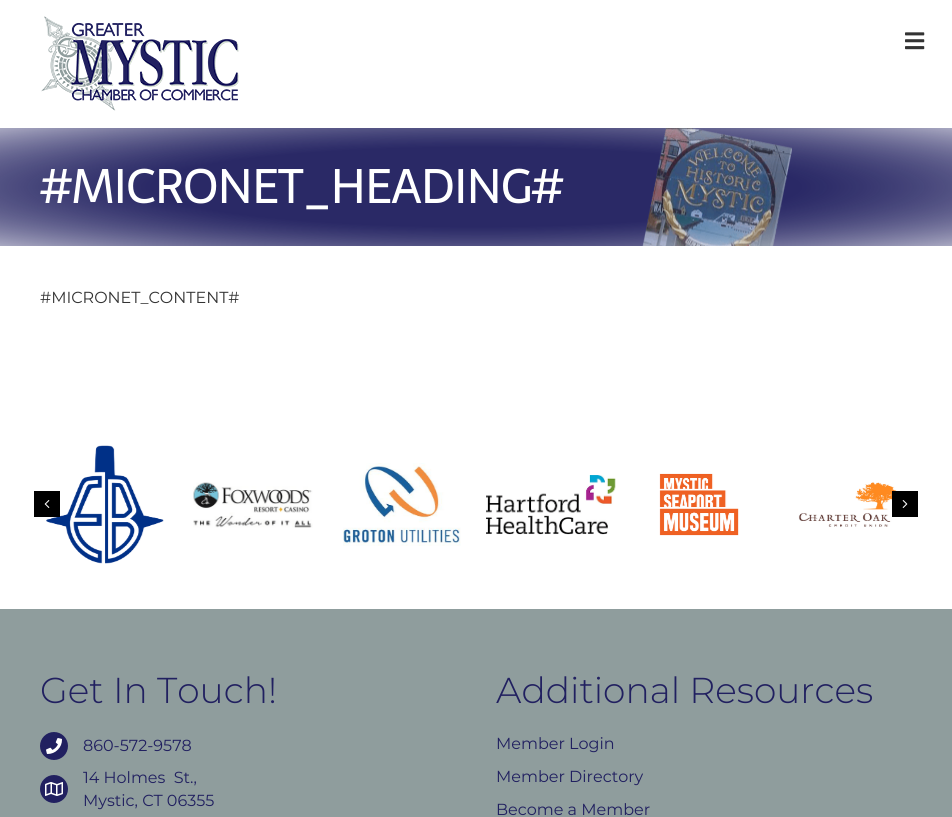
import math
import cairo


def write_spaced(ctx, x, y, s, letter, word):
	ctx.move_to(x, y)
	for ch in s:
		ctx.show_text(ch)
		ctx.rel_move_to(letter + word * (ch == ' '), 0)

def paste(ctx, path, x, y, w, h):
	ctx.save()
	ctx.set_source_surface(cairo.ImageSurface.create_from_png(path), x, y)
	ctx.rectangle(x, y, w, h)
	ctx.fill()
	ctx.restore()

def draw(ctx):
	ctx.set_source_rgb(1, 1, 1)
	ctx.paint()
	paste(ctx, 'media/1.png', 41, 16, 198, 95)
	paste(ctx, 'media/2.png', 905, 32, 20, 18)
	ctx.set_source_rgb(0.129, 0.125, 0.376)
	ctx.rectangle(0, 128, 952, 118)
	ctx.fill()
	paste(ctx, 'media/3.png', 642, 128, 150, 118)
	gradient = cairo.RadialGradient(0, 0, 0, 0, 0, 1)
	gradient.set_matrix(cairo.Matrix(1 / 673, 0, 0, 1 / 83, -1 * 476 / 673, -1 * 187 / 83))
	gradient.add_color_stop_rgba(0.48, 0.263, 0.263, 0.467, 0.27)
	gradient.add_color_stop_rgba(1, 1, 1, 1, 0.61)
	ctx.set_source(gradient)
	ctx.rectangle(0, 128, 952, 118)
	ctx.fill()
	ctx.select_font_face('Sarala')
	ctx.set_font_size(48)
	ctx.set_source_rgb(1, 1, 1)
	write_spaced(ctx, 40, 203, '#MICRONET_HEADING#', -1, 0)
	ctx.select_font_face('Montserrat')
	ctx.set_font_size(16)
	ctx.set_source_rgb(0.2, 0.2, 0.2)
	ctx.move_to(40, 303)
	ctx.show_text('#MICRONET_CONTENT#')
	paste(ctx, 'media/4.png', 46, 445, 118, 119)
	paste(ctx, 'media/5.png', 193, 482, 120, 46)
	paste(ctx, 'media/6.png', 343, 463, 118, 83)
	paste(ctx, 'media/7.png', 486, 475, 130, 60)
	paste(ctx, 'media/8.png', 659, 473, 80, 63)
	paste(ctx, 'media/9.png', 798, 482, 99, 45)
	ctx.set_source_rgb(0, 0, 0)
	ctx.rectangle(34, 491, 26, 26)
	ctx.fill()
	paste(ctx, 'media/10.png', 44, 500, 6, 8)
	ctx.rectangle(892, 491, 26, 26)
	ctx.fill()
	paste(ctx, 'media/11.png', 902, 500, 6, 8)
	ctx.set_source_rgb(0.561, 0.616, 0.616)
	ctx.rectangle(0, 609, 952, 208)
	ctx.fill()
	ctx.select_font_face('Montserrat Light')
	ctx.set_font_size(36)
	ctx.set_source_rgb(0.129, 0.125, 0.376)
	ctx.move_to(40, 703)
	ctx.show_text('Get In Touch!')
	ctx.new_path()
	ctx.arc(54, 746, 14, 0, 2 * math.pi)
	ctx.fill()
	paste(ctx, 'media/12.png', 46, 738, 16, 16)
	ctx.select_font_face('Montserrat')
	ctx.set_font_size(16)
	ctx.move_to(83, 751)
	ctx.show_text('860-572-9578')
	ctx.new_path()
	ctx.arc(54, 789, 14, 0, 2 * math.pi)
	ctx.fill()
	paste(ctx, 'media/13.png', 45, 782, 18, 14)
	ctx.move_to(83, 783)
	ctx.show_text('14 Holmes  St.,')
	ctx.move_to(83, 806)
	ctx.show_text('Mystic, CT 06355')
	ctx.select_font_face('Montserrat Light')
	ctx.set_font_size(36)
	ctx.move_to(496, 703)
	ctx.show_text('Additional Resources')
	ctx.select_font_face('Montserrat')
	ctx.set_font_size(16)
	for x, y, s in [
		(496, 749, 'Member Login'),
		(496, 782, 'Member Directory'),
		(496, 815, 'Become a Member'),
	]:
		ctx.move_to(x, y)
		ctx.show_text(s)


surface = cairo.ImageSurface(cairo.FORMAT_RGB24, 952, 817)
ctx = cairo.Context(surface)
options = cairo.FontOptions()
options.set_hint_metrics(cairo.HINT_METRICS_OFF)
options.set_hint_style(cairo.HINT_STYLE_NONE)
ctx.set_font_options(options)
ctx.set_miter_limit(4)
draw(ctx)
surface.write_to_png('image.png')
